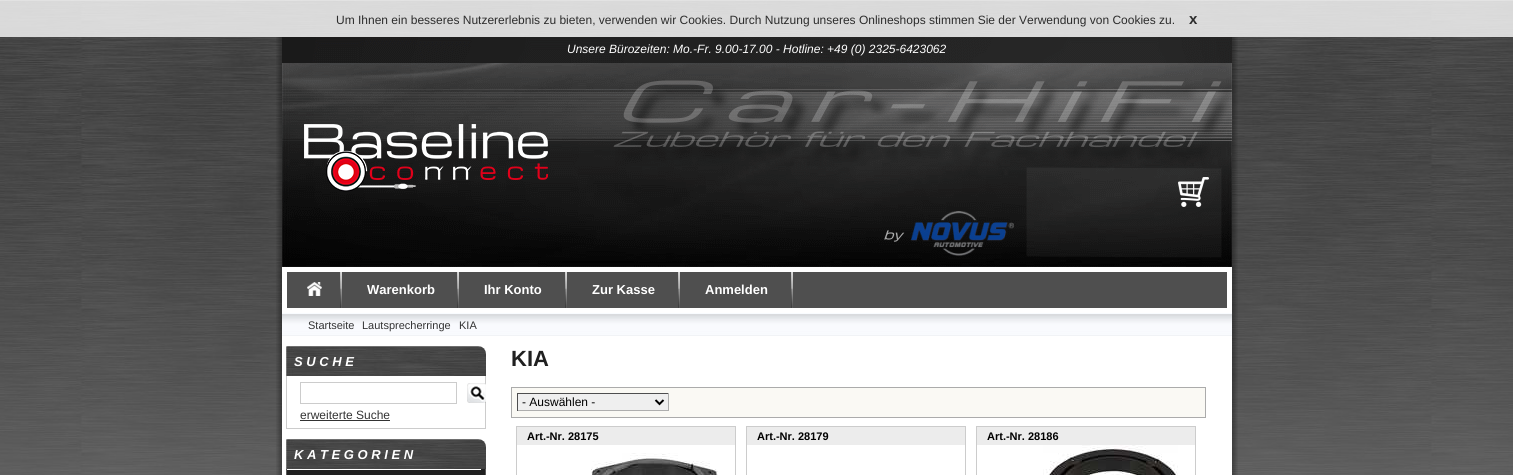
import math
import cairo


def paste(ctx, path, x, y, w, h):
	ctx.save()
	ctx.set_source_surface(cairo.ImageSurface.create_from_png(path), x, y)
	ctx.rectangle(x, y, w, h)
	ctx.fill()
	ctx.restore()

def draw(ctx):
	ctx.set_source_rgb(1, 1, 1)
	ctx.paint()
	paste(ctx, 'media/1.png', 0, 0, 1513, 475)
	ctx.set_source_rgba(1, 1, 1, 0.8)
	ctx.rectangle(0, 0, 1513, 37)
	ctx.fill()
	ctx.select_font_face('Liberation Sans')
	ctx.set_font_size(12)
	ctx.set_source_rgb(0.173, 0.173, 0.173)
	ctx.move_to(336, 24)
	ctx.show_text('Um Ihnen ein besseres Nutzererlebnis zu bieten, verwenden wir Cookies. Durch Nutzung unseres Onlineshops stimmen Sie der Verwendung von Cookies zu.')
	ctx.select_font_face('Liberation Sans', cairo.FONT_SLANT_NORMAL, cairo.FONT_WEIGHT_BOLD)
	ctx.set_font_size(15)
	ctx.move_to(1189, 24)
	ctx.show_text('x')
	paste(ctx, 'media/2.png', 276, 37, 962, 438)
	paste(ctx, 'media/3.png', 282, 37, 950, 230)
	ctx.select_font_face('Liberation Sans', cairo.FONT_SLANT_ITALIC)
	ctx.set_font_size(12)
	ctx.set_source_rgb(1, 1, 1)
	ctx.move_to(567, 53)
	ctx.show_text('Unsere Bürozeiten: Mo.-Fr. 9.00-17.00 - Hotline: +49 (0) 2325-6423062')
	paste(ctx, 'media/4.png', 304, 124, 244, 68)
	ctx.set_source_rgb(0.31, 0.31, 0.31)
	ctx.rectangle(287, 272, 940, 36)
	ctx.fill()
	paste(ctx, 'media/5.png', 340, 272, 2, 36)
	paste(ctx, 'media/6.png', 307, 282, 15, 14)
	paste(ctx, 'media/5.png', 457, 272, 2, 36)
	ctx.select_font_face('Liberation Sans', cairo.FONT_SLANT_NORMAL, cairo.FONT_WEIGHT_BOLD)
	ctx.set_font_size(13)
	ctx.set_source_rgb(1, 1, 1)
	ctx.move_to(367, 294)
	ctx.show_text('Warenkorb')
	paste(ctx, 'media/5.png', 565, 272, 2, 36)
	ctx.move_to(484, 294)
	ctx.show_text('Ihr Konto')
	paste(ctx, 'media/5.png', 678, 272, 2, 36)
	ctx.move_to(592, 294)
	ctx.show_text('Zur Kasse')
	paste(ctx, 'media/5.png', 791, 272, 2, 36)
	ctx.move_to(705, 294)
	ctx.show_text('Anmelden')
	paste(ctx, 'media/7.png', 282, 313, 950, 23)
	ctx.select_font_face('Liberation Sans')
	ctx.set_font_size(11)
	ctx.set_source_rgb(0.2, 0.2, 0.2)
	for x, y, s in [
		(308, 329, 'Startseite'),
		(362, 329, 'Lautsprecherringe'),
		(459, 329, 'KIA'),
	]:
		ctx.move_to(x, y)
		ctx.show_text(s)
	paste(ctx, 'media/8.png', 286, 346, 200, 30)
	ctx.select_font_face('Liberation Sans', cairo.FONT_SLANT_ITALIC, cairo.FONT_WEIGHT_BOLD)
	ctx.set_font_size(13)
	ctx.set_source_rgb(1, 1, 1)
	ctx.move_to(294, 366)
	ctx.show_text('S U C H E')
	ctx.set_source_rgb(0.8, 0.8, 0.8)
	ctx.rectangle(485, 376, 1, 53)
	ctx.rectangle(286, 428, 200, 1)
	ctx.rectangle(286, 376, 1, 53)
	ctx.fill()
	ctx.rectangle(300.5, 382.5, 156, 21)
	ctx.set_line_width(1)
	ctx.stroke()
	paste(ctx, 'media/9.png', 467, 383, 19, 20)
	ctx.select_font_face('Liberation Sans')
	ctx.set_font_size(12)
	ctx.set_source_rgb(0.2, 0.2, 0.2)
	ctx.move_to(300, 419)
	ctx.show_text('erweiterte Suche')
	ctx.rectangle(300, 420, 90, 1)
	ctx.fill()
	paste(ctx, 'media/8.png', 286, 439, 200, 30)
	ctx.select_font_face('Liberation Sans', cairo.FONT_SLANT_ITALIC, cairo.FONT_WEIGHT_BOLD)
	ctx.set_font_size(13)
	ctx.set_source_rgb(1, 1, 1)
	ctx.move_to(294, 459)
	ctx.show_text('K A T E G O R I E N')
	ctx.set_source_rgb(0.125, 0.125, 0.125)
	ctx.rectangle(287, 469, 198, 6)
	ctx.fill()
	ctx.set_source_rgb(0.353, 0.353, 0.353)
	ctx.rectangle(485, 469, 1, 6)
	ctx.rectangle(286, 469, 1, 6)
	ctx.fill()
	ctx.set_source_rgb(1, 1, 1)
	ctx.rectangle(287, 469, 194, 1)
	ctx.fill()
	ctx.select_font_face('Liberation Sans', cairo.FONT_SLANT_NORMAL, cairo.FONT_WEIGHT_BOLD)
	ctx.set_font_size(22)
	ctx.set_source_rgb(0.125, 0.125, 0.125)
	ctx.move_to(511, 366)
	ctx.show_text('KIA')
	ctx.set_source_rgb(0.98, 0.976, 0.957)
	ctx.rectangle(511.5, 387.5, 694, 30)
	ctx.fill_preserve()
	ctx.set_source_rgb(0.671, 0.671, 0.671)
	ctx.stroke()
	ctx.set_source_rgb(0.937, 0.937, 0.937)
	ctx.rectangle(518, 394, 150, 16)
	ctx.fill()
	ctx.set_source_rgb(0.306, 0.306, 0.31)
	ctx.rectangle(517, 393, 152, 1)
	ctx.fill()
	ctx.set_source_rgb(0.682, 0.682, 0.682)
	ctx.rectangle(668, 393, 1, 18)
	ctx.rectangle(517, 410, 152, 1)
	ctx.fill()
	ctx.set_source_rgb(0.306, 0.306, 0.31)
	ctx.rectangle(517, 393, 1, 18)
	ctx.fill()
	ctx.new_path()
	ctx.move_to(655.5, 400)
	ctx.line_to(659.5, 404)
	ctx.line_to(663.5, 400)
	ctx.set_source_rgb(0, 0, 0)
	ctx.set_line_width(2)
	ctx.stroke()
	ctx.select_font_face('Liberation Sans')
	ctx.set_font_size(12)
	ctx.move_to(522, 406)
	ctx.show_text('- Auswählen -')
	ctx.set_source_rgb(0.922, 0.922, 0.922)
	ctx.rectangle(517, 427, 218, 18)
	ctx.fill()
	ctx.rectangle(516.5, 426.5, 219, 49)
	ctx.set_source_rgb(0.8, 0.8, 0.8)
	ctx.set_line_width(1)
	ctx.stroke()
	ctx.select_font_face('Liberation Sans', cairo.FONT_SLANT_NORMAL, cairo.FONT_WEIGHT_BOLD)
	ctx.set_font_size(11)
	ctx.set_source_rgb(0, 0, 0)
	ctx.move_to(527, 440)
	ctx.show_text('Art.-Nr. 28175')
	paste(ctx, 'media/10.png', 591, 453, 127, 22)
	ctx.set_source_rgb(0.922, 0.922, 0.922)
	ctx.rectangle(747, 427, 218, 18)
	ctx.fill()
	ctx.rectangle(746.5, 426.5, 219, 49)
	ctx.set_source_rgb(0.8, 0.8, 0.8)
	ctx.stroke()
	ctx.set_source_rgb(0, 0, 0)
	ctx.move_to(757, 440)
	ctx.show_text('Art.-Nr. 28179')
	ctx.set_source_rgb(0.922, 0.922, 0.922)
	ctx.rectangle(977, 427, 218, 18)
	ctx.fill()
	ctx.rectangle(976.5, 426.5, 219, 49)
	ctx.set_source_rgb(0.8, 0.8, 0.8)
	ctx.stroke()
	ctx.set_source_rgb(0, 0, 0)
	ctx.move_to(987, 440)
	ctx.show_text('Art.-Nr. 28186')
	paste(ctx, 'media/11.png', 1043, 445, 135, 30)


surface = cairo.ImageSurface(cairo.FORMAT_RGB24, 1513, 475)
ctx = cairo.Context(surface)
options = cairo.FontOptions()
options.set_hint_metrics(cairo.HINT_METRICS_OFF)
options.set_hint_style(cairo.HINT_STYLE_NONE)
ctx.set_font_options(options)
ctx.set_miter_limit(4)
draw(ctx)
surface.write_to_png('image.png')
